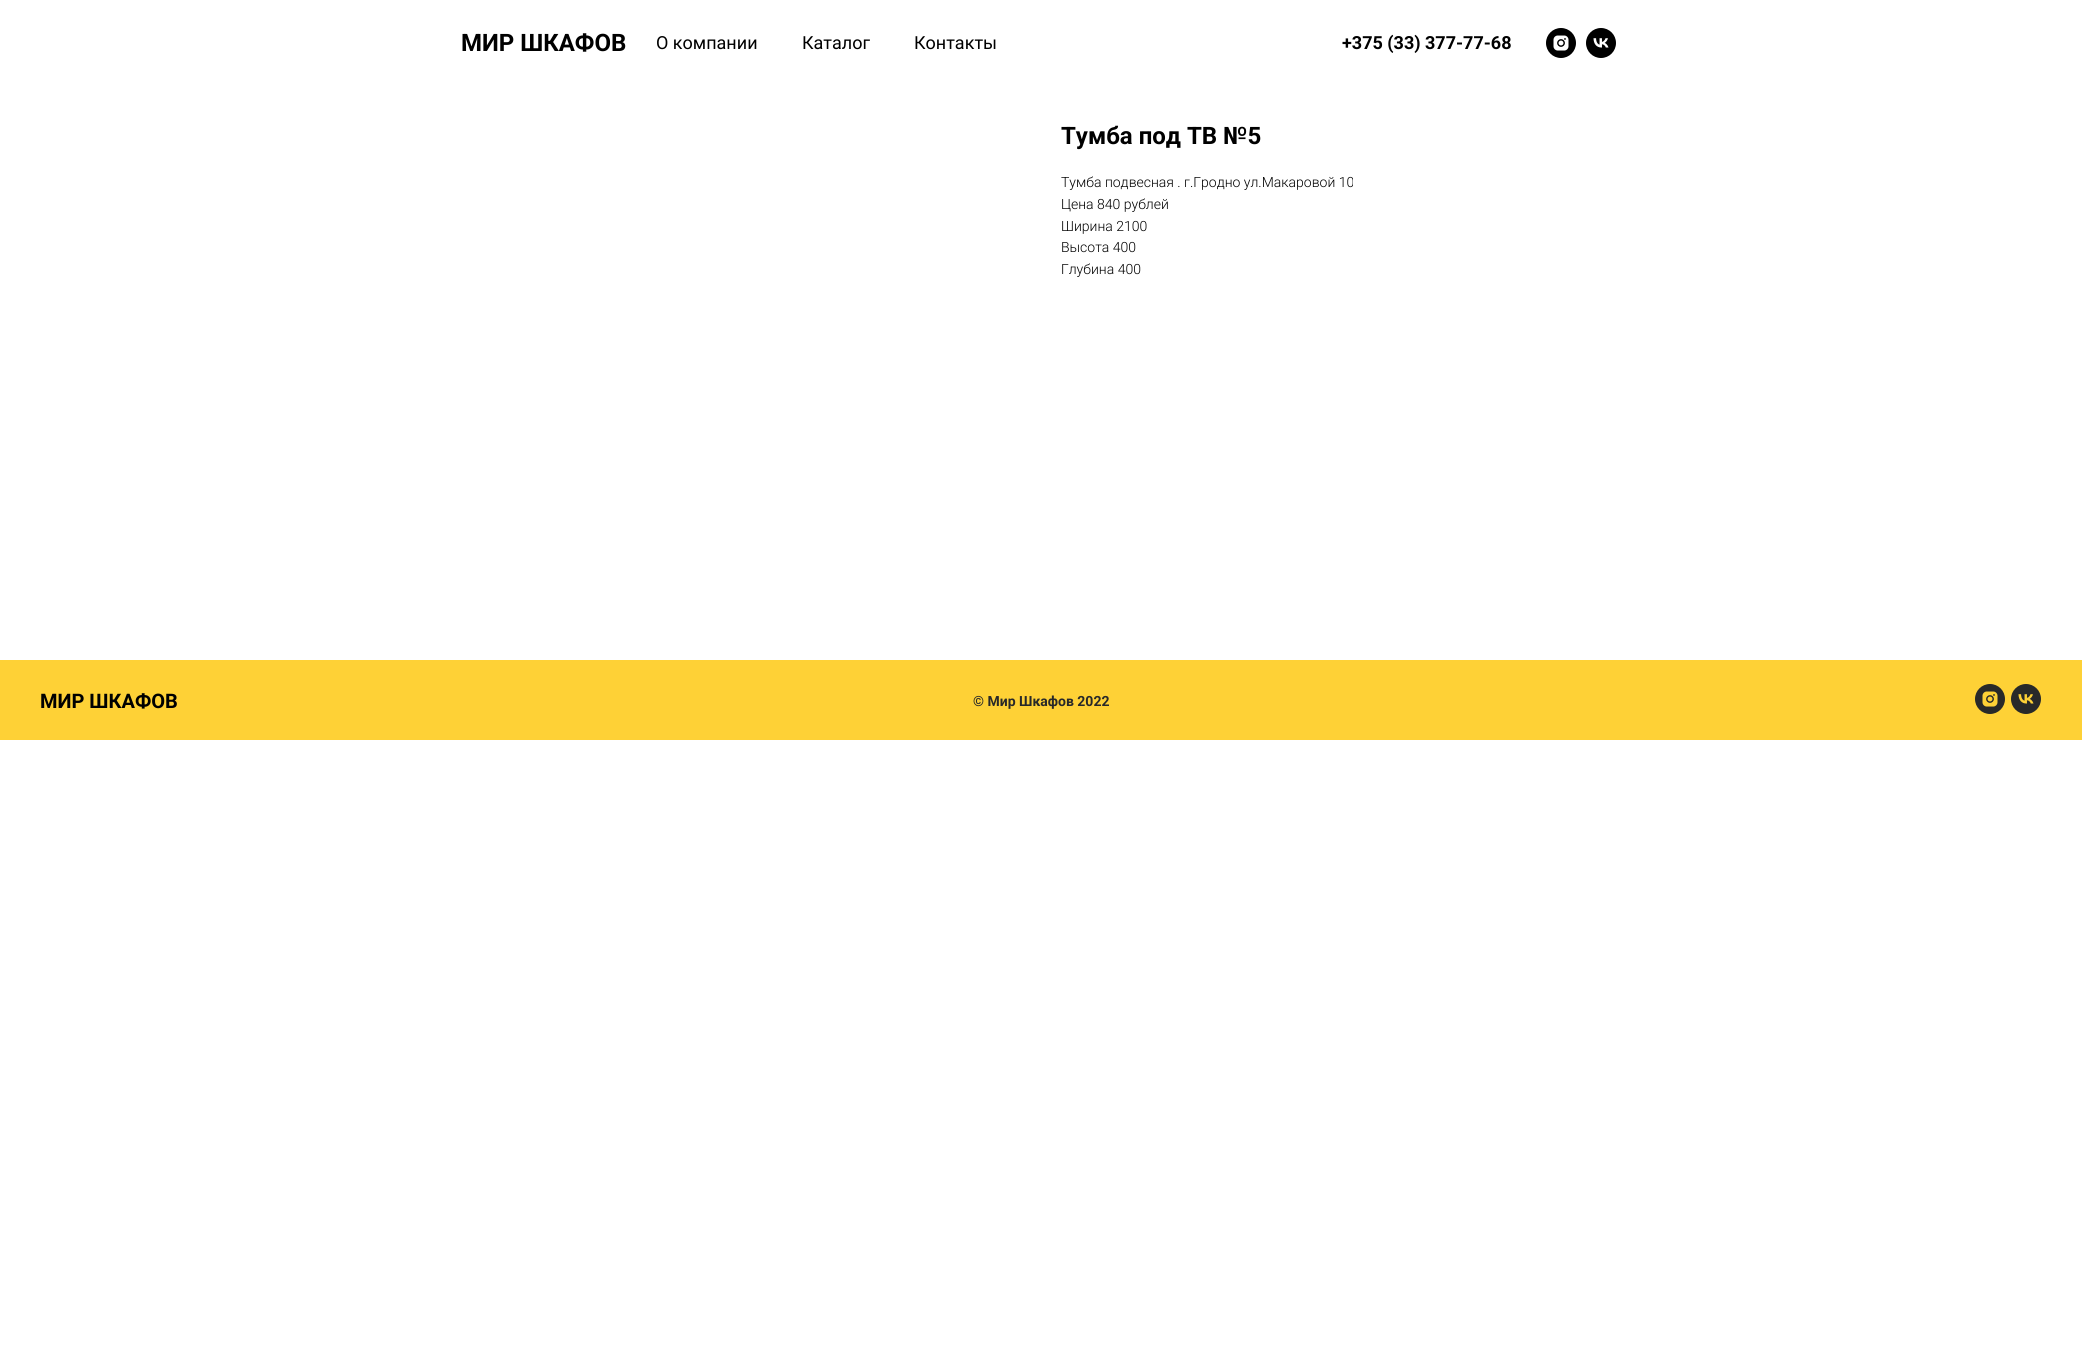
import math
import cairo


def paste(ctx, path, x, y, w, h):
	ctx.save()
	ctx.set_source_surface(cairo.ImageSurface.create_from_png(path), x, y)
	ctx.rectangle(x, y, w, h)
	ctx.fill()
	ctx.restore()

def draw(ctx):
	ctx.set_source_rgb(1, 1, 1)
	ctx.paint()
	ctx.select_font_face('Roboto', cairo.FONT_SLANT_NORMAL, cairo.FONT_WEIGHT_BOLD)
	ctx.set_font_size(24)
	ctx.set_source_rgb(0, 0, 0)
	ctx.move_to(461, 51)
	ctx.show_text('МИР ШКАФОВ')
	ctx.select_font_face('Roboto')
	ctx.set_font_size(18)
	for x, y, s in [
		(656, 49, 'О компании'),
		(802, 49, 'Каталог'),
		(914, 49, 'Контакты'),
	]:
		ctx.move_to(x, y)
		ctx.show_text(s)
	ctx.select_font_face('Roboto', cairo.FONT_SLANT_NORMAL, cairo.FONT_WEIGHT_BOLD)
	ctx.move_to(1342, 49)
	ctx.show_text('+375 (33) 377-77-68')
	paste(ctx, 'media/1.png', 1546, 28, 30, 30)
	paste(ctx, 'media/2.png', 1586, 28, 30, 30)
	ctx.set_font_size(24)
	ctx.move_to(1061, 144)
	ctx.show_text('Тумба под ТВ №5')
	ctx.select_font_face('Roboto Light')
	ctx.set_font_size(14)
	for x, y, s in [
		(1061, 187, 'Тумба подвесная . г.Гродно ул.Макаровой 10'),
		(1061, 209, 'Цена 840 рублей'),
		(1061, 231, 'Ширина 2100'),
		(1061, 252, 'Высота 400'),
		(1061, 274, 'Глубина 400'),
	]:
		ctx.move_to(x, y)
		ctx.show_text(s)
	ctx.set_source_rgb(0.996, 0.82, 0.212)
	ctx.rectangle(0, 660, 2082, 80)
	ctx.fill()
	ctx.select_font_face('Roboto', cairo.FONT_SLANT_NORMAL, cairo.FONT_WEIGHT_BOLD)
	ctx.set_font_size(20)
	ctx.set_source_rgb(0, 0, 0)
	ctx.move_to(40, 708)
	ctx.show_text('МИР ШКАФОВ')
	ctx.set_font_size(14)
	ctx.set_source_rgb(0.157, 0.161, 0.161)
	ctx.move_to(973, 706)
	ctx.show_text('© Мир Шкафов 2022')
	paste(ctx, 'media/3.png', 1975, 684, 30, 30)
	paste(ctx, 'media/4.png', 2011, 684, 30, 30)


surface = cairo.ImageSurface(cairo.FORMAT_RGB24, 2082, 1349)
ctx = cairo.Context(surface)
options = cairo.FontOptions()
options.set_hint_metrics(cairo.HINT_METRICS_OFF)
options.set_hint_style(cairo.HINT_STYLE_NONE)
ctx.set_font_options(options)
ctx.set_miter_limit(4)
draw(ctx)
surface.write_to_png('image.png')
